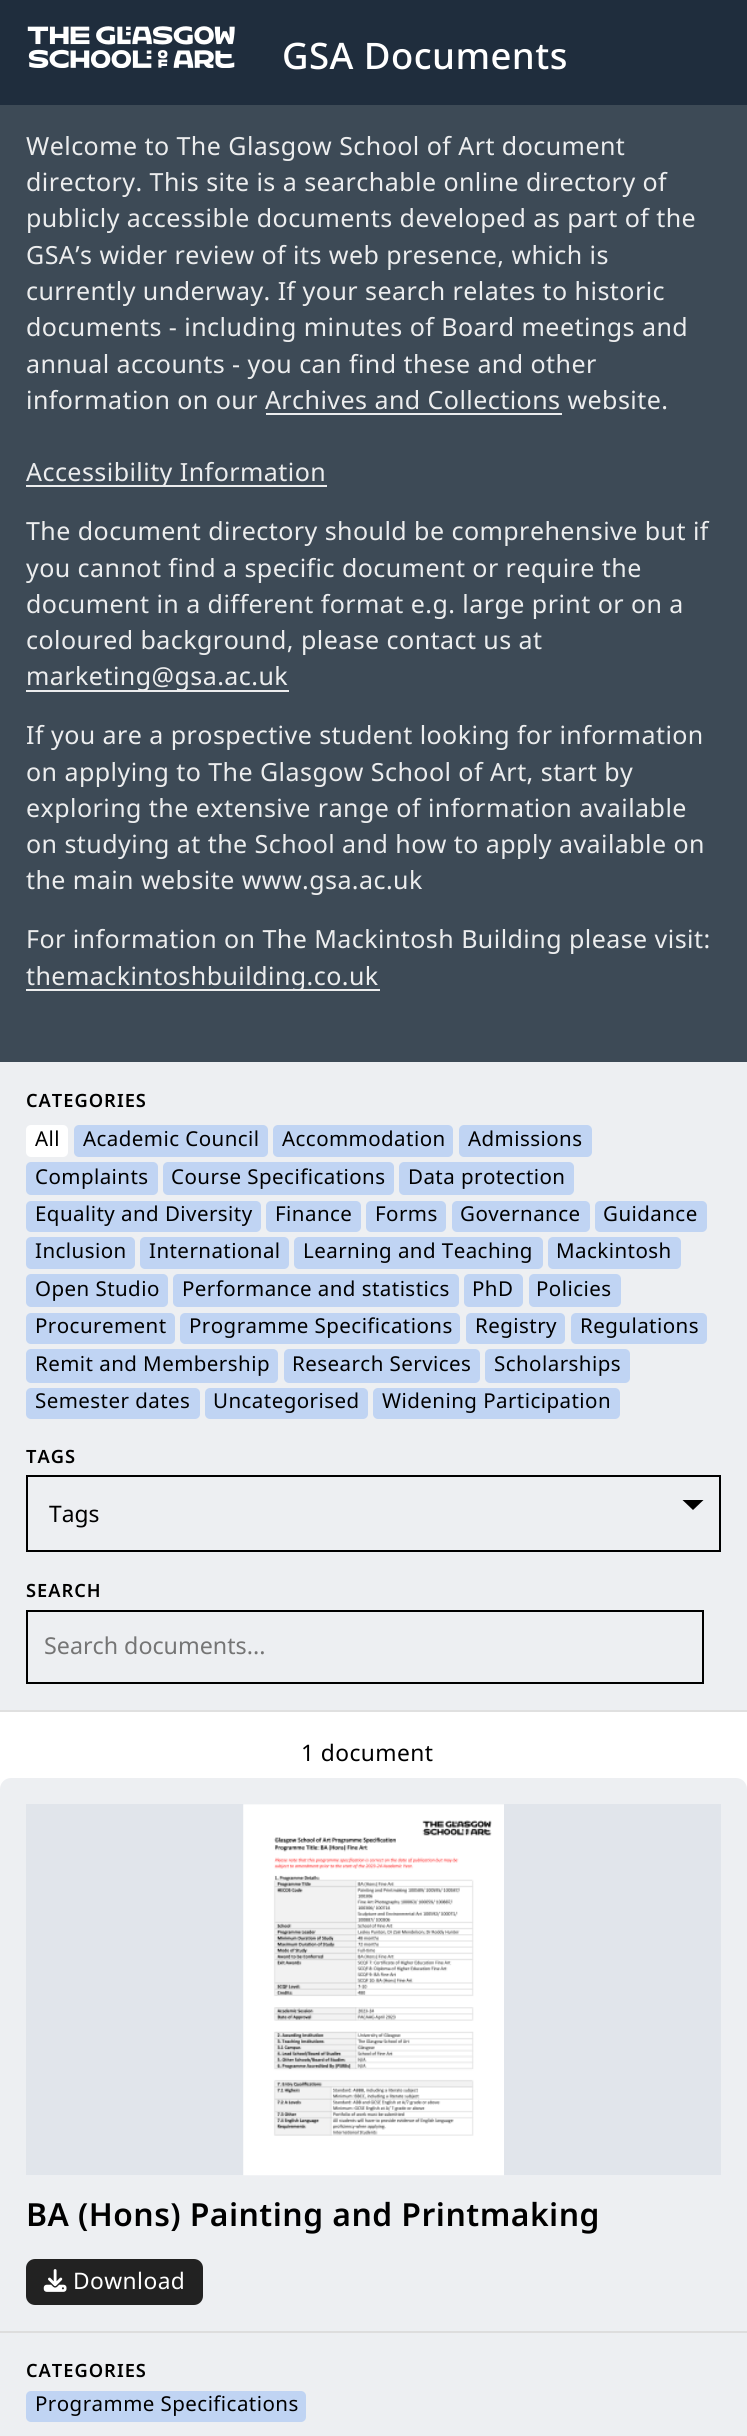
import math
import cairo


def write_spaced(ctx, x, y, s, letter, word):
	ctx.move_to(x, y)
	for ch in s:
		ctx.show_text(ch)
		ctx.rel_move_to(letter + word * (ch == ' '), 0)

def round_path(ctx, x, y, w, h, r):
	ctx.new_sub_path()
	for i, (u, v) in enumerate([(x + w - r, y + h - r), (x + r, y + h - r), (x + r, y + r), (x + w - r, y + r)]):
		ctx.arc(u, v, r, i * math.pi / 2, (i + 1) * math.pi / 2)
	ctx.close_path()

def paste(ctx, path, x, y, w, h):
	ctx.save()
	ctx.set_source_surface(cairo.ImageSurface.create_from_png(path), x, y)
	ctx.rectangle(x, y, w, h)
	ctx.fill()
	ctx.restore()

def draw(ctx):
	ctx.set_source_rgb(1, 1, 1)
	ctx.paint()
	ctx.set_source_rgb(0.122, 0.176, 0.239)
	ctx.rectangle(0, 0, 747, 105)
	ctx.fill()
	paste(ctx, 'media/1.png', 27, 26, 208, 42)
	ctx.select_font_face('Noto Sans Arabic Medium')
	ctx.set_font_size(36.5)
	ctx.set_source_rgb(1, 1, 1)
	write_spaced(ctx, 282, 69, 'GSA Documents', 0.45, 0)
	ctx.set_source_rgb(0.239, 0.29, 0.337)
	ctx.rectangle(0, 105, 747, 957)
	ctx.fill()
	ctx.select_font_face('Noto Sans Arabic')
	ctx.set_font_size(25)
	ctx.set_source_rgb(0.925, 0.929, 0.933)
	for x, y, s in [
		(26, 155, 'Welcome to The Glasgow School of Art document'),
		(26, 191, 'directory. This site is a searchable online directory of'),
		(26, 227, 'publicly accessible documents developed as part of the'),
		(26, 264, 'GSA’s wider review of its web presence, which is'),
		(26, 300, 'currently underway. If your search relates to historic'),
		(26, 336, 'documents - including minutes of Board meetings and'),
		(26, 373, 'annual accounts - you can find these and other'),
		(26, 409, 'information on our Archives and Collections website.'),
	]:
		write_spaced(ctx, x, y, s, 0.45, 0)
	ctx.rectangle(266, 413, 296, 2)
	ctx.fill()
	ctx.rectangle(26, 485, 301, 2)
	ctx.fill()
	for x, y, s in [
		(26, 481, 'Accessibility Information'),
		(26, 540, 'The document directory should be comprehensive but if'),
		(26, 577, 'you cannot find a specific document or require the'),
		(26, 613, 'document in a different format e.g. large print or on a'),
		(26, 649, 'coloured background, please contact us at'),
	]:
		write_spaced(ctx, x, y, s, 0.45, 0)
	ctx.rectangle(26, 690, 263, 2)
	ctx.fill()
	for x, y, s in [
		(26, 685, 'marketing@gsa.ac.uk'),
		(26, 744, 'If you are a prospective student looking for information'),
		(26, 781, 'on applying to The Glasgow School of Art, start by'),
		(26, 817, 'exploring the extensive range of information available'),
		(26, 853, 'on studying at the School and how to apply available on'),
		(26, 889, 'the main website www.gsa.ac.uk'),
		(26, 948, 'For information on The Mackintosh Building please visit:'),
	]:
		write_spaced(ctx, x, y, s, 0.45, 0)
	ctx.rectangle(26, 989, 354, 2)
	ctx.fill()
	write_spaced(ctx, 26, 985, 'themackintoshbuilding.co.uk', 0.45, 0)
	ctx.set_source_rgb(0.929, 0.937, 0.949)
	ctx.rectangle(0, 1062, 747, 648)
	ctx.fill()
	ctx.set_source_rgb(0.878, 0.878, 0.878)
	ctx.rectangle(0, 1710, 747, 2)
	ctx.fill()
	ctx.select_font_face('Noto Sans Arabic SemiBold')
	ctx.set_font_size(18.25)
	ctx.set_source_rgb(0, 0, 0)
	write_spaced(ctx, 26, 1107, 'CATEGORIES', 1, 0)
	ctx.set_source_rgb(1, 1, 1)
	round_path(ctx, 26, 1125, 42, 32, 5)
	ctx.fill()
	ctx.select_font_face('Noto Sans Arabic')
	ctx.set_font_size(20.5)
	ctx.set_source_rgb(0, 0, 0)
	write_spaced(ctx, 35, 1146, 'All', 0.45, 0)
	ctx.set_source_rgb(0.753, 0.831, 0.953)
	round_path(ctx, 74, 1125, 194, 32, 5)
	ctx.fill()
	ctx.set_source_rgb(0, 0, 0)
	write_spaced(ctx, 83, 1146, 'Academic Council', 0.45, 0)
	ctx.set_source_rgb(0.753, 0.831, 0.953)
	round_path(ctx, 273, 1125, 180, 32, 5)
	ctx.fill()
	ctx.set_source_rgb(0, 0, 0)
	write_spaced(ctx, 282, 1146, 'Accommodation', 0.45, 0)
	ctx.set_source_rgb(0.753, 0.831, 0.953)
	round_path(ctx, 459, 1125, 133, 32, 5)
	ctx.fill()
	ctx.set_source_rgb(0, 0, 0)
	write_spaced(ctx, 468, 1146, 'Admissions', 0.45, 0)
	ctx.set_source_rgb(0.753, 0.831, 0.953)
	round_path(ctx, 26, 1162, 132, 33, 5)
	ctx.fill()
	ctx.set_source_rgb(0, 0, 0)
	write_spaced(ctx, 35, 1184, 'Complaints', 0.45, 0)
	ctx.set_source_rgb(0.753, 0.831, 0.953)
	round_path(ctx, 163, 1162, 231, 33, 5)
	ctx.fill()
	ctx.set_source_rgb(0, 0, 0)
	write_spaced(ctx, 171, 1184, 'Course Specifications', 0.45, 0)
	ctx.set_source_rgb(0.753, 0.831, 0.953)
	round_path(ctx, 399, 1162, 175, 33, 5)
	ctx.fill()
	ctx.set_source_rgb(0, 0, 0)
	write_spaced(ctx, 408, 1184, 'Data protection', 0.45, 0)
	ctx.set_source_rgb(0.753, 0.831, 0.953)
	round_path(ctx, 26, 1201, 235, 31, 5)
	ctx.fill()
	ctx.set_source_rgb(0, 0, 0)
	write_spaced(ctx, 35, 1221, 'Equality and Diversity', 0.45, 0)
	ctx.set_source_rgb(0.753, 0.831, 0.953)
	round_path(ctx, 266, 1201, 95, 31, 5)
	ctx.fill()
	ctx.set_source_rgb(0, 0, 0)
	write_spaced(ctx, 275, 1221, 'Finance', 0.45, 0)
	ctx.set_source_rgb(0.753, 0.831, 0.953)
	round_path(ctx, 366, 1201, 80, 31, 5)
	ctx.fill()
	ctx.set_source_rgb(0, 0, 0)
	write_spaced(ctx, 375, 1221, 'Forms', 0.45, 0)
	ctx.set_source_rgb(0.753, 0.831, 0.953)
	round_path(ctx, 452, 1201, 138, 31, 5)
	ctx.fill()
	ctx.set_source_rgb(0, 0, 0)
	write_spaced(ctx, 460, 1221, 'Governance', 0.45, 0)
	ctx.set_source_rgb(0.753, 0.831, 0.953)
	round_path(ctx, 595, 1201, 112, 31, 5)
	ctx.fill()
	ctx.set_source_rgb(0, 0, 0)
	write_spaced(ctx, 603, 1221, 'Guidance', 0.45, 0)
	ctx.set_source_rgb(0.753, 0.831, 0.953)
	round_path(ctx, 26, 1237, 109, 32, 5)
	ctx.fill()
	ctx.set_source_rgb(0, 0, 0)
	write_spaced(ctx, 35, 1258, 'Inclusion', 0.45, 0)
	ctx.set_source_rgb(0.753, 0.831, 0.953)
	round_path(ctx, 140, 1237, 149, 32, 5)
	ctx.fill()
	ctx.set_source_rgb(0, 0, 0)
	write_spaced(ctx, 149, 1258, 'International', 0.45, 0)
	ctx.set_source_rgb(0.753, 0.831, 0.953)
	round_path(ctx, 294, 1237, 249, 32, 5)
	ctx.fill()
	ctx.set_source_rgb(0, 0, 0)
	write_spaced(ctx, 303, 1258, 'Learning and Teaching', 0.45, 0)
	ctx.set_source_rgb(0.753, 0.831, 0.953)
	round_path(ctx, 548, 1237, 133, 32, 5)
	ctx.fill()
	ctx.set_source_rgb(0, 0, 0)
	write_spaced(ctx, 556, 1258, 'Mackintosh', 0.45, 0)
	ctx.set_source_rgb(0.753, 0.831, 0.953)
	round_path(ctx, 26, 1274, 142, 33, 5)
	ctx.fill()
	ctx.set_source_rgb(0, 0, 0)
	write_spaced(ctx, 35, 1296, 'Open Studio', 0.45, 0)
	ctx.set_source_rgb(0.753, 0.831, 0.953)
	round_path(ctx, 173, 1274, 286, 33, 5)
	ctx.fill()
	ctx.set_source_rgb(0, 0, 0)
	write_spaced(ctx, 182, 1296, 'Performance and statistics', 0.45, 0)
	ctx.set_source_rgb(0.753, 0.831, 0.953)
	round_path(ctx, 464, 1274, 59, 33, 5)
	ctx.fill()
	ctx.set_source_rgb(0, 0, 0)
	write_spaced(ctx, 472, 1296, 'PhD', 0.45, 0)
	ctx.set_source_rgb(0.753, 0.831, 0.953)
	round_path(ctx, 529, 1274, 92, 33, 5)
	ctx.fill()
	ctx.set_source_rgb(0, 0, 0)
	write_spaced(ctx, 536, 1296, 'Policies', 0.45, 0)
	ctx.set_source_rgb(0.753, 0.831, 0.953)
	round_path(ctx, 26, 1313, 149, 31, 5)
	ctx.fill()
	ctx.set_source_rgb(0, 0, 0)
	write_spaced(ctx, 35, 1333, 'Procurement', 0.45, 0)
	ctx.set_source_rgb(0.753, 0.831, 0.953)
	round_path(ctx, 180, 1313, 280, 31, 5)
	ctx.fill()
	ctx.set_source_rgb(0, 0, 0)
	write_spaced(ctx, 189, 1333, 'Programme Specifications', 0.45, 0)
	ctx.set_source_rgb(0.753, 0.831, 0.953)
	round_path(ctx, 466, 1313, 99, 31, 5)
	ctx.fill()
	ctx.set_source_rgb(0, 0, 0)
	write_spaced(ctx, 475, 1333, 'Registry', 0.45, 0)
	ctx.set_source_rgb(0.753, 0.831, 0.953)
	round_path(ctx, 571, 1313, 136, 31, 5)
	ctx.fill()
	ctx.set_source_rgb(0, 0, 0)
	write_spaced(ctx, 580, 1333, 'Regulations', 0.45, 0)
	ctx.set_source_rgb(0.753, 0.831, 0.953)
	round_path(ctx, 26, 1349, 252, 34, 5)
	ctx.fill()
	ctx.set_source_rgb(0, 0, 0)
	write_spaced(ctx, 35, 1371, 'Remit and Membership', 0.45, 0)
	ctx.set_source_rgb(0.753, 0.831, 0.953)
	round_path(ctx, 284, 1349, 196, 34, 5)
	ctx.fill()
	ctx.set_source_rgb(0, 0, 0)
	write_spaced(ctx, 292, 1371, 'Research Services', 0.45, 0)
	ctx.set_source_rgb(0.753, 0.831, 0.953)
	round_path(ctx, 485, 1349, 145, 34, 5)
	ctx.fill()
	ctx.set_source_rgb(0, 0, 0)
	write_spaced(ctx, 494, 1371, 'Scholarships', 0.45, 0)
	ctx.set_source_rgb(0.753, 0.831, 0.953)
	round_path(ctx, 26, 1388, 174, 31, 5)
	ctx.fill()
	ctx.set_source_rgb(0, 0, 0)
	write_spaced(ctx, 35, 1408, 'Semester dates', 0.45, 0)
	ctx.set_source_rgb(0.753, 0.831, 0.953)
	round_path(ctx, 205, 1388, 163, 31, 5)
	ctx.fill()
	ctx.set_source_rgb(0, 0, 0)
	write_spaced(ctx, 213, 1408, 'Uncategorised', 0.45, 0)
	ctx.set_source_rgb(0.753, 0.831, 0.953)
	round_path(ctx, 373, 1388, 247, 31, 5)
	ctx.fill()
	ctx.set_source_rgb(0, 0, 0)
	write_spaced(ctx, 382, 1408, 'Widening Participation', 0.45, 0)
	ctx.select_font_face('Noto Sans Arabic SemiBold')
	ctx.set_font_size(18.25)
	write_spaced(ctx, 26, 1463, 'TAGS', 1, 0)
	ctx.new_path()
	ctx.move_to(682.5, 1500)
	ctx.line_to(703.5, 1500)
	ctx.line_to(693, 1510)
	ctx.close_path()
	ctx.fill()
	ctx.rectangle(27, 1476, 693, 75)
	ctx.stroke()
	ctx.select_font_face('Noto Sans Arabic')
	ctx.set_font_size(22.75)
	ctx.move_to(49, 1522)
	ctx.show_text('Tags')
	ctx.select_font_face('Noto Sans Arabic SemiBold')
	ctx.set_font_size(18.25)
	write_spaced(ctx, 26, 1597, 'SEARCH', 1, 0)
	ctx.rectangle(27, 1611, 676, 72)
	ctx.stroke()
	ctx.select_font_face('Noto Sans Arabic')
	ctx.set_font_size(23.25)
	ctx.set_source_rgb(0.459, 0.459, 0.459)
	ctx.move_to(44, 1654)
	ctx.show_text('Search documents...')
	ctx.set_font_size(22.75)
	ctx.set_source_rgb(0, 0, 0)
	write_spaced(ctx, 301, 1761, '1 document', 0.45, 0)
	ctx.set_source_rgb(0.929, 0.937, 0.949)
	round_path(ctx, 0, 1778, 747, 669, 11)
	ctx.fill()
	ctx.set_source_rgb(0.882, 0.898, 0.918)
	ctx.rectangle(26, 1804, 695, 371)
	ctx.fill()
	paste(ctx, 'media/2.png', 243, 1804, 261, 372)
	ctx.select_font_face('Noto Sans Arabic SemiBold')
	ctx.set_font_size(31.8)
	ctx.set_source_rgb(0, 0, 0)
	write_spaced(ctx, 26, 2226, 'BA (Hons) Painting and Printmaking', 0.45, 0)
	ctx.set_source_rgb(0.133, 0.133, 0.133)
	round_path(ctx, 26, 2259, 177, 46, 9)
	ctx.fill()
	paste(ctx, 'media/3.png', 43, 2269, 24, 23)
	ctx.select_font_face('Noto Sans Arabic')
	ctx.set_font_size(22.75)
	ctx.set_source_rgb(1, 1, 1)
	write_spaced(ctx, 73, 2289, 'Download', 0.45, 0)
	ctx.set_source_rgb(0.867, 0.867, 0.867)
	ctx.rectangle(0, 2331, 747, 2)
	ctx.fill()
	ctx.select_font_face('Noto Sans Arabic SemiBold')
	ctx.set_font_size(18.25)
	ctx.set_source_rgb(0, 0, 0)
	write_spaced(ctx, 26, 2377, 'CATEGORIES', 1, 0)
	ctx.set_source_rgb(0.753, 0.831, 0.953)
	round_path(ctx, 26, 2391, 280, 31, 5)
	ctx.fill()
	ctx.select_font_face('Noto Sans Arabic')
	ctx.set_font_size(20.5)
	ctx.set_source_rgb(0, 0, 0)
	write_spaced(ctx, 35, 2411, 'Programme Specifications', 0.45, 0)


surface = cairo.ImageSurface(cairo.FORMAT_RGB24, 747, 2436)
ctx = cairo.Context(surface)
options = cairo.FontOptions()
options.set_hint_metrics(cairo.HINT_METRICS_OFF)
options.set_hint_style(cairo.HINT_STYLE_NONE)
ctx.set_font_options(options)
ctx.set_miter_limit(4)
draw(ctx)
surface.write_to_png('image.png')
